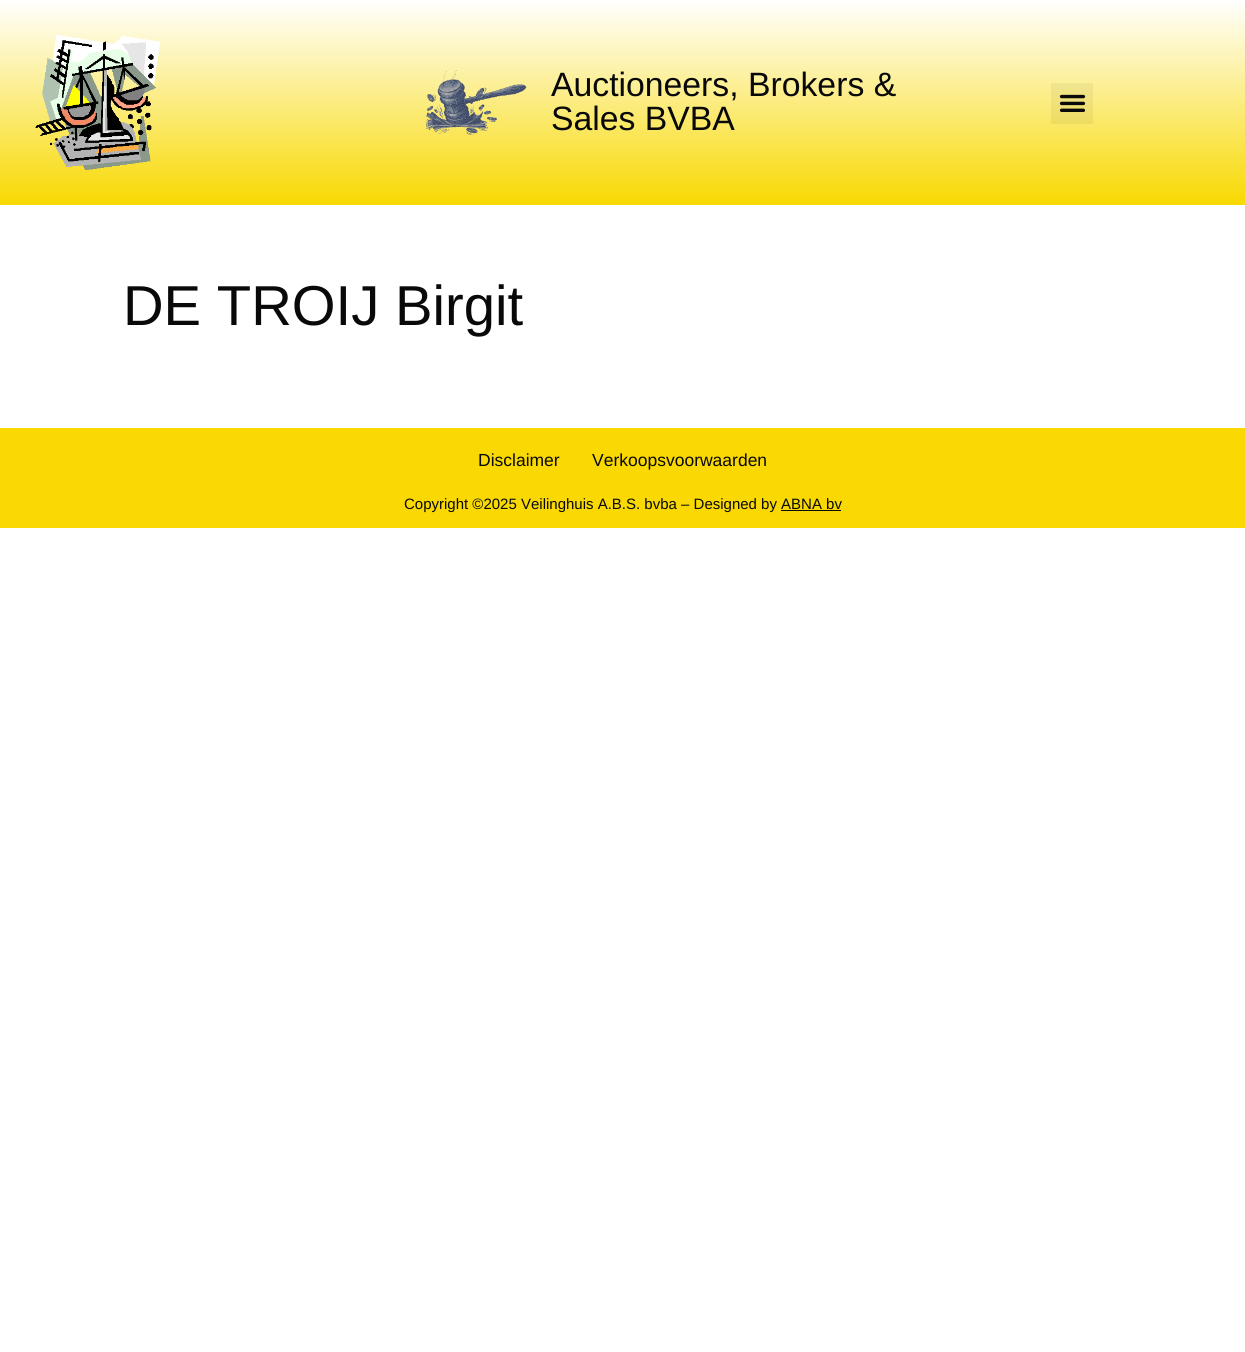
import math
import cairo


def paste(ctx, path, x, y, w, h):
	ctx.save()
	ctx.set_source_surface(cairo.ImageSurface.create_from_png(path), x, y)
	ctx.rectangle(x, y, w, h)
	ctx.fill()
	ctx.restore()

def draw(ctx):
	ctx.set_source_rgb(1, 1, 1)
	ctx.paint()
	gradient = cairo.LinearGradient(623, 0, 623, 205)
	gradient.add_color_stop_rgba(0, 1, 1, 1, 1)
	gradient.add_color_stop_rgba(1, 0.973, 0.851, 0.004, 1)
	ctx.set_source(gradient)
	ctx.rectangle(0, 2, 1245, 203)
	ctx.fill()
	paste(ctx, 'media/1.png', 35, 35, 125, 135)
	paste(ctx, 'media/2.png', 426, 70, 101, 65)
	ctx.select_font_face('Liberation Sans')
	ctx.set_font_size(33.75)
	ctx.set_source_rgb(0.039, 0.039, 0.039)
	ctx.move_to(551, 96)
	ctx.show_text('Auctioneers, Brokers &')
	ctx.move_to(551, 130)
	ctx.show_text('Sales BVBA')
	ctx.set_source_rgba(0, 0, 0, 0.05)
	ctx.rectangle(1051, 83, 42, 41)
	ctx.fill()
	paste(ctx, 'media/3.png', 1059, 94, 27, 18)
	ctx.set_font_size(56.25)
	ctx.set_source_rgb(0.039, 0.039, 0.039)
	ctx.move_to(123, 325)
	ctx.show_text('DE TROIJ Birgit')
	ctx.set_source_rgb(0.973, 0.851, 0.004)
	ctx.rectangle(0, 428, 1245, 100)
	ctx.fill()
	ctx.set_font_size(17.5)
	ctx.set_source_rgb(0.039, 0.039, 0.039)
	ctx.move_to(478, 466)
	ctx.show_text('Disclaimer')
	ctx.move_to(592, 466)
	ctx.show_text('Verkoopsvoorwaarden')
	ctx.set_font_size(15)
	ctx.move_to(404, 509)
	ctx.show_text('Copyright ©2025 Veilinghuis A.B.S. bvba – Designed by ABNA bv')
	ctx.rectangle(781, 510, 60, 1)
	ctx.fill()


surface = cairo.ImageSurface(cairo.FORMAT_RGB24, 1245, 1352)
ctx = cairo.Context(surface)
options = cairo.FontOptions()
options.set_hint_metrics(cairo.HINT_METRICS_OFF)
options.set_hint_style(cairo.HINT_STYLE_NONE)
ctx.set_font_options(options)
ctx.set_miter_limit(4)
draw(ctx)
surface.write_to_png('image.png')
